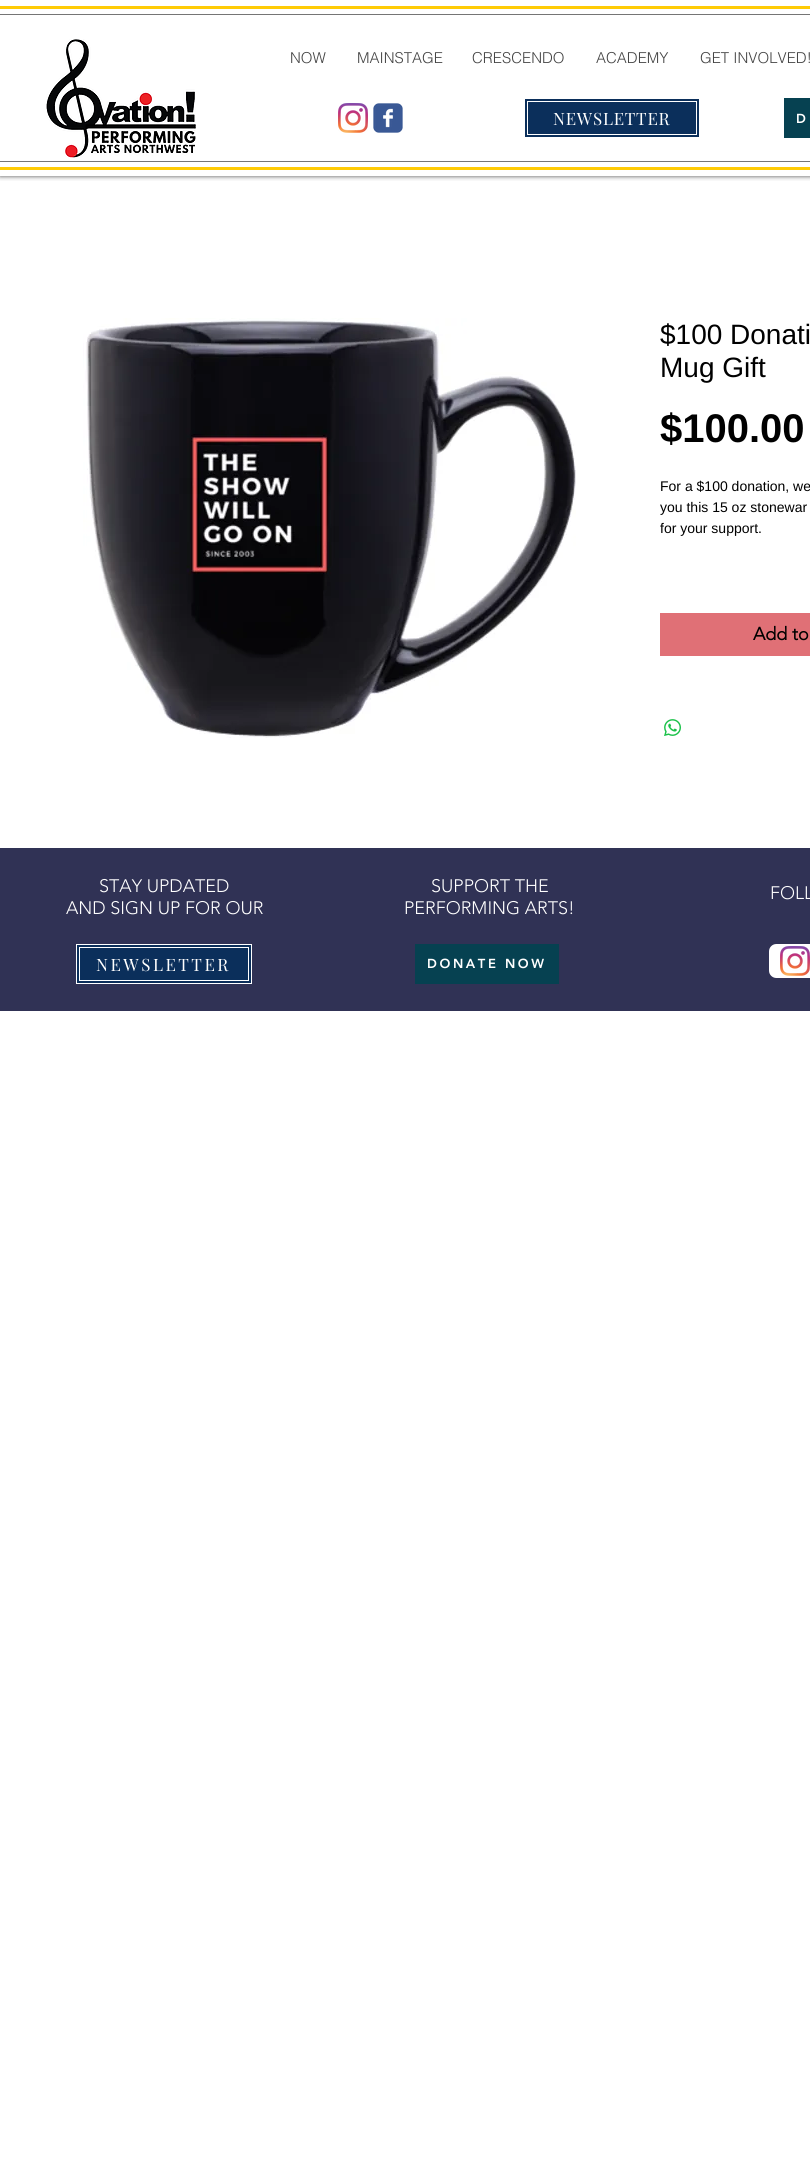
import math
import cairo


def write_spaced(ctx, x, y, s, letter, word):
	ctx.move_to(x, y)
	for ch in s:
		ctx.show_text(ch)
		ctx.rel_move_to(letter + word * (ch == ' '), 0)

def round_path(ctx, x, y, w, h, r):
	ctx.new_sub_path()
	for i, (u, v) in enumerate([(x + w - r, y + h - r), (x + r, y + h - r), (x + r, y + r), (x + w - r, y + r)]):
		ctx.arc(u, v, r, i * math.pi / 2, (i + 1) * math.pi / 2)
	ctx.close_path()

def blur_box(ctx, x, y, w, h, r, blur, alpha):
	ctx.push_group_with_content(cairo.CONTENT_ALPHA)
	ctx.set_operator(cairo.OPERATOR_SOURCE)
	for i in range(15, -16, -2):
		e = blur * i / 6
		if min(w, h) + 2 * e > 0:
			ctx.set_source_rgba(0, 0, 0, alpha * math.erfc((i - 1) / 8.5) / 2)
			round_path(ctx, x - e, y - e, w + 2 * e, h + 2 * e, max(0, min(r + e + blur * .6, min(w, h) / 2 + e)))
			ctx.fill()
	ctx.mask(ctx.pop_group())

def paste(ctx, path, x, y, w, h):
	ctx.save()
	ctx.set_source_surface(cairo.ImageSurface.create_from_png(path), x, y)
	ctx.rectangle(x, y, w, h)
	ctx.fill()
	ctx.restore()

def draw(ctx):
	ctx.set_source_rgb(1, 1, 1)
	ctx.paint()
	ctx.save()
	ctx.rectangle(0, 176, 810, 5)
	ctx.clip()
	ctx.set_source_rgb(0, 0, 0)
	blur_box(ctx, 0, 0, 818, 176, 0, 2.5, 0.7)
	ctx.restore()
	ctx.set_source_rgb(1, 0.796, 0.02)
	ctx.rectangle(0, 6, 810, 3)
	ctx.rectangle(0, 167, 810, 3)
	ctx.fill()
	ctx.set_source_rgb(0.459, 0.459, 0.459)
	ctx.rectangle(0, 14, 810, 1)
	ctx.rectangle(0, 161, 810, 1)
	ctx.fill()
	paste(ctx, 'media/1.png', 46, 39, 150, 119)
	ctx.select_font_face('helvetica Light')
	ctx.set_font_size(15)
	ctx.set_source_rgb(0.267, 0.267, 0.267)
	for x, y, s in [
		(290, 63, 'NOW'),
		(357, 63, 'MAINSTAGE'),
		(472, 63, 'CRESCENDO'),
		(596, 63, 'ACADEMY'),
		(700, 63, 'GET INVOLVED!'),
	]:
		ctx.move_to(x, y)
		ctx.show_text(s)
	paste(ctx, 'media/2.png', 338, 103, 30, 30)
	paste(ctx, 'media/3.png', 373, 103, 30, 30)
	ctx.set_source_rgb(0.043, 0.184, 0.357)
	ctx.rectangle(525, 99, 174, 38)
	ctx.fill()
	ctx.rectangle(527.5, 101.5, 169, 33)
	ctx.set_source_rgb(1, 1, 1)
	ctx.set_line_width(1)
	ctx.stroke()
	ctx.select_font_face('Playfair Display')
	ctx.set_font_size(17)
	write_spaced(ctx, 553, 125, 'NEWSLETTER', 0.75, 0)
	ctx.set_source_rgb(0.027, 0.255, 0.318)
	ctx.rectangle(784, 98, 26, 40)
	ctx.fill()
	ctx.select_font_face('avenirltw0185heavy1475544 Black')
	ctx.set_font_size(13)
	ctx.set_source_rgb(1, 1, 1)
	write_spaced(ctx, 796, 123, 'D', 2.6, 0)
	paste(ctx, 'media/4.png', 83, 318, 493, 420)
	ctx.select_font_face('Liberation Sans')
	ctx.set_font_size(28)
	ctx.set_source_rgb(0, 0, 0)
	ctx.move_to(660, 344)
	ctx.show_text('$100 Donati')
	ctx.move_to(660, 377)
	ctx.show_text('Mug Gift')
	ctx.select_font_face('Liberation Sans', cairo.FONT_SLANT_NORMAL, cairo.FONT_WEIGHT_BOLD)
	ctx.set_font_size(40)
	ctx.move_to(660, 442)
	ctx.show_text('$100.00')
	ctx.select_font_face('Liberation Sans')
	ctx.set_font_size(14)
	for x, y, s in [
		(660, 491, 'For a $100 donation, we'),
		(660, 512, 'you this 15 oz stonewar'),
		(660, 533, 'for your support.'),
	]:
		ctx.move_to(x, y)
		ctx.show_text(s)
	ctx.set_source_rgb(0.878, 0.439, 0.463)
	ctx.rectangle(660, 613, 150, 43)
	ctx.fill()
	ctx.select_font_face('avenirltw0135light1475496', cairo.FONT_SLANT_NORMAL, cairo.FONT_WEIGHT_BOLD)
	ctx.set_font_size(18)
	ctx.set_source_rgb(0, 0, 0)
	ctx.move_to(753, 640)
	ctx.show_text('Add to')
	paste(ctx, 'media/5.png', 664, 719, 17, 17)
	ctx.set_source_rgb(0.188, 0.196, 0.333)
	ctx.rectangle(0, 848, 810, 163)
	ctx.fill()
	ctx.select_font_face('avenirltw0135light1475496 Light')
	ctx.set_source_rgb(1, 1, 1)
	for x, y, s in [
		(99, 892, 'STAY UPDATED'),
		(66, 914, 'AND SIGN UP FOR OUR'),
		(431, 892, 'SUPPORT THE'),
		(404, 914, 'PERFORMING ARTS!'),
		(770, 899, 'FOLL'),
	]:
		ctx.move_to(x, y)
		ctx.show_text(s)
	paste(ctx, 'media/6.png', 769, 944, 41, 34)
	ctx.set_source_rgb(0.043, 0.184, 0.357)
	ctx.rectangle(76.5, 944.5, 175, 39)
	ctx.fill_preserve()
	ctx.set_source_rgb(1, 1, 1)
	ctx.stroke()
	ctx.rectangle(79.5, 947.5, 169, 33)
	ctx.stroke()
	ctx.select_font_face('Playfair Display')
	ctx.set_font_size(17)
	write_spaced(ctx, 96, 971, 'NEWSLETTER', 2.5, 0)
	ctx.set_source_rgb(0.027, 0.255, 0.318)
	ctx.rectangle(415, 944, 144, 40)
	ctx.fill()
	ctx.select_font_face('avenirltw0185heavy1475544 Black')
	ctx.set_font_size(13)
	ctx.set_source_rgb(1, 1, 1)
	write_spaced(ctx, 427, 968, 'DONATE NOW', 2.6, 0)
	paste(ctx, 'media/2.png', 780, 946, 30, 30)


surface = cairo.ImageSurface(cairo.FORMAT_RGB24, 810, 2180)
ctx = cairo.Context(surface)
options = cairo.FontOptions()
options.set_hint_metrics(cairo.HINT_METRICS_OFF)
options.set_hint_style(cairo.HINT_STYLE_NONE)
ctx.set_font_options(options)
ctx.set_miter_limit(4)
draw(ctx)
surface.write_to_png('image.png')
